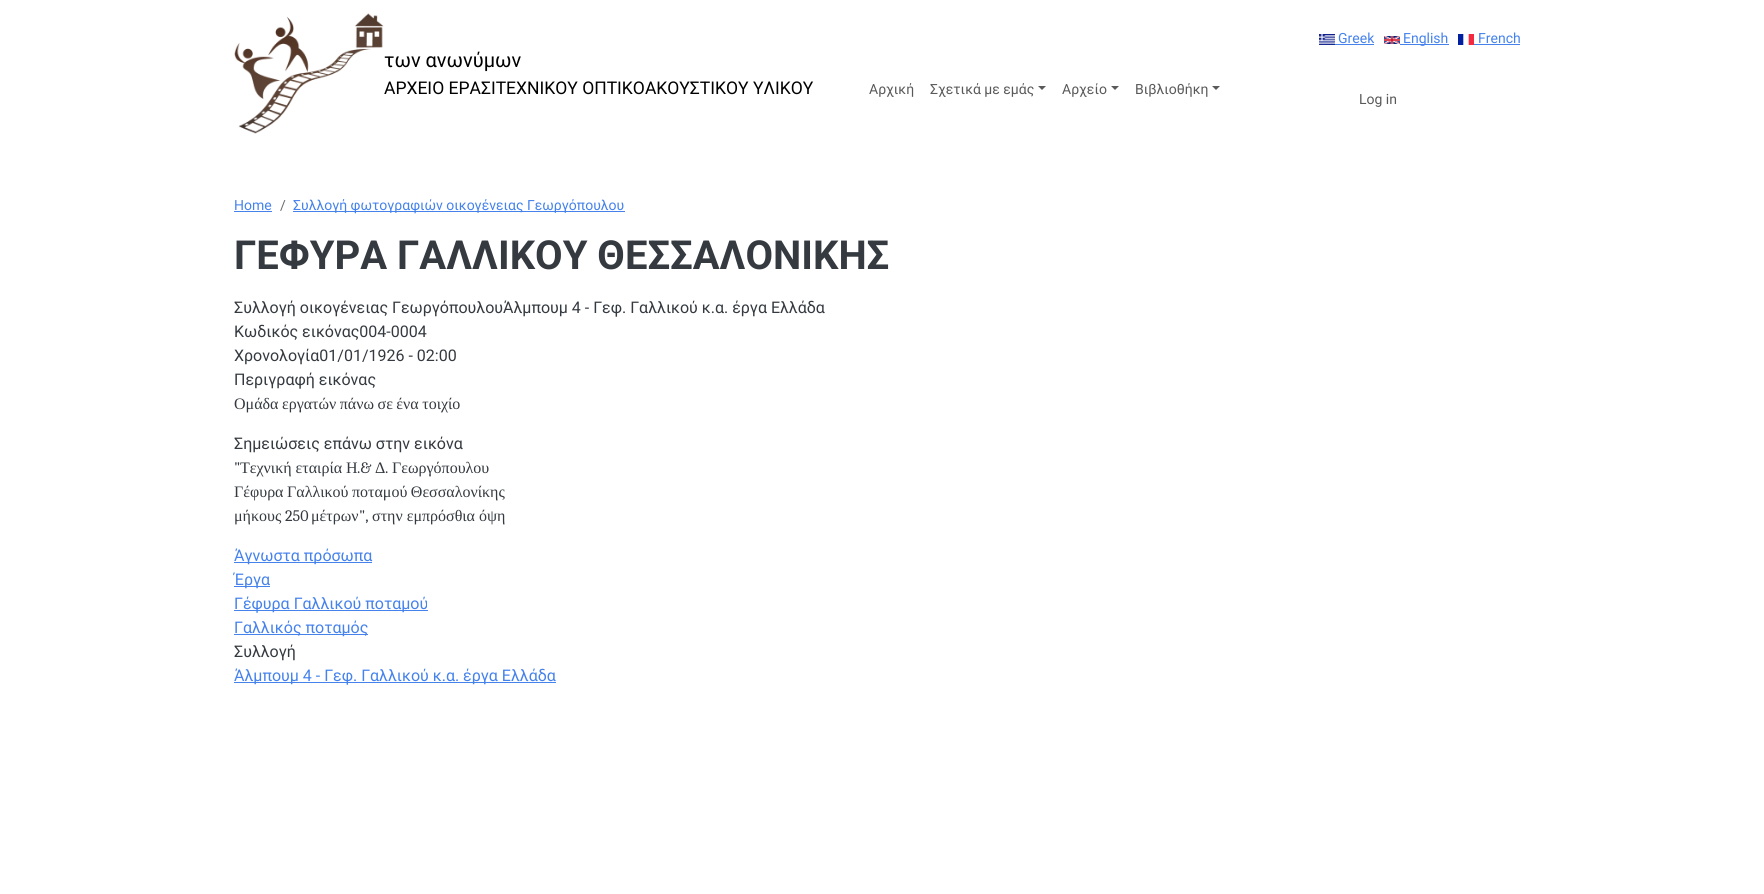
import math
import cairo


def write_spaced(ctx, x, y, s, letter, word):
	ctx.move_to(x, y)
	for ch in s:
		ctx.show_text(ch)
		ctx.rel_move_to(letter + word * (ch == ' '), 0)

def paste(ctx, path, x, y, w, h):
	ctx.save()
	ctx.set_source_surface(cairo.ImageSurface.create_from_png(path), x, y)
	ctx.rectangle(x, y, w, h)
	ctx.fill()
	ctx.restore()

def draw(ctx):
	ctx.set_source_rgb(1, 1, 1)
	ctx.paint()
	paste(ctx, 'media/1.png', 234, 13, 150, 121)
	ctx.select_font_face('Roboto')
	ctx.set_font_size(20)
	ctx.set_source_rgb(0, 0, 0)
	ctx.move_to(384, 67)
	ctx.show_text('των ανωνύμων')
	ctx.set_font_size(17.5)
	ctx.move_to(384, 94)
	ctx.show_text('ΑΡΧΕΙΟ ΕΡΑΣΙΤΕΧΝΙΚΟΥ ΟΠΤΙΚΟΑΚΟΥΣΤΙΚΟΥ ΥΛΙΚΟΥ')
	ctx.set_font_size(14)
	ctx.set_source_rgb(0.349, 0.349, 0.349)
	ctx.move_to(869, 94)
	ctx.show_text('Αρχική')
	ctx.move_to(930, 94)
	ctx.show_text('Σχετικά με εμάς')
	ctx.new_path()
	ctx.move_to(1038, 86)
	ctx.line_to(1046, 86)
	ctx.line_to(1042, 90)
	ctx.close_path()
	ctx.fill()
	ctx.move_to(1062, 94)
	ctx.show_text('Αρχείο')
	ctx.new_path()
	ctx.move_to(1111, 86)
	ctx.line_to(1119, 86)
	ctx.line_to(1115, 90)
	ctx.close_path()
	ctx.fill()
	ctx.move_to(1135, 94)
	ctx.show_text('Βιβλιοθήκη')
	ctx.new_path()
	ctx.move_to(1212, 86)
	ctx.line_to(1220, 86)
	ctx.line_to(1216, 90)
	ctx.close_path()
	ctx.fill()
	paste(ctx, 'media/2.png', 1319, 34, 16, 11)
	ctx.set_source_rgb(0.271, 0.51, 0.925)
	ctx.move_to(1338, 43)
	ctx.show_text('Greek')
	ctx.rectangle(1335, 44, 39, 1)
	ctx.fill()
	paste(ctx, 'media/3.png', 1384, 36, 16, 8)
	ctx.rectangle(1400, 44, 49, 1)
	ctx.fill()
	ctx.move_to(1403, 43)
	ctx.show_text('English')
	paste(ctx, 'media/4.png', 1458, 34, 16, 11)
	ctx.move_to(1478, 43)
	ctx.show_text('French')
	ctx.rectangle(1474, 44, 46, 1)
	ctx.fill()
	ctx.set_source_rgb(0.349, 0.349, 0.349)
	ctx.move_to(1359, 104)
	ctx.show_text('Log in')
	ctx.set_source_rgb(0.271, 0.51, 0.925)
	ctx.move_to(234, 210)
	ctx.show_text('Home')
	ctx.rectangle(234, 211, 38, 1)
	ctx.fill()
	ctx.set_source_rgb(0.404, 0.42, 0.439)
	ctx.move_to(280, 210)
	ctx.show_text('/')
	ctx.set_source_rgb(0.271, 0.51, 0.925)
	ctx.rectangle(293, 211, 332, 1)
	ctx.fill()
	ctx.move_to(293, 210)
	ctx.show_text('Συλλογή φωτογραφιών οικογένειας Γεωργόπουλου')
	ctx.select_font_face('Roboto', cairo.FONT_SLANT_NORMAL, cairo.FONT_WEIGHT_BOLD)
	ctx.set_font_size(40)
	ctx.set_source_rgb(0.204, 0.227, 0.251)
	ctx.move_to(234, 269)
	ctx.show_text('ΓΕΦΥΡΑ ΓΑΛΛΙΚΟΥ ΘΕΣΣΑΛΟΝΙΚΗΣ')
	ctx.select_font_face('Roboto')
	ctx.set_font_size(16)
	for x, y, s in [
		(234, 313, 'Συλλογή οικογένειας ΓεωργόπουλουΆλμπουμ 4 - Γεφ. Γαλλικού κ.α. έργα Ελλάδα'),
		(234, 337, 'Κωδικός εικόνας004-0004'),
		(234, 361, 'Χρονολογία01/01/1926 - 02:00'),
		(234, 385, 'Περιγραφή εικόνας'),
	]:
		ctx.move_to(x, y)
		ctx.show_text(s)
	ctx.select_font_face('Liberation Serif')
	write_spaced(ctx, 234, 409, 'Ομάδα εργατών πάνω σε ένα τοιχίο', 0, -0.5)
	ctx.select_font_face('Roboto')
	ctx.move_to(234, 449)
	ctx.show_text('Σημειώσεις επάνω στην εικόνα')
	ctx.select_font_face('Caladea')
	ctx.move_to(234, 473)
	ctx.show_text('"')
	ctx.select_font_face('Liberation Serif')
	ctx.move_to(240, 473)
	ctx.show_text('Τεχνική εταιρία Η')
	ctx.select_font_face('Caladea')
	ctx.move_to(357, 473)
	ctx.show_text('.&')
	ctx.select_font_face('Liberation Serif')
	ctx.move_to(375, 473)
	ctx.show_text('Δ')
	ctx.select_font_face('Caladea')
	ctx.move_to(385, 473)
	ctx.show_text('.')
	ctx.select_font_face('Liberation Serif')
	ctx.move_to(392, 473)
	ctx.show_text('Γεωργόπουλου')
	write_spaced(ctx, 234, 497, 'Γέφυρα Γαλλικού ποταμού Θεσσαλονίκης', 0, -0.5)
	ctx.move_to(234, 521)
	ctx.show_text('μήκους')
	ctx.select_font_face('Caladea')
	ctx.move_to(285, 521)
	ctx.show_text('250')
	ctx.select_font_face('Liberation Serif')
	ctx.move_to(311, 521)
	ctx.show_text('μέτρων')
	ctx.select_font_face('Caladea')
	ctx.move_to(359, 521)
	ctx.show_text('",')
	ctx.select_font_face('Liberation Serif')
	ctx.move_to(372, 521)
	ctx.show_text('στην εμπρόσθια όψη')
	ctx.set_source_rgb(0.271, 0.51, 0.925)
	ctx.rectangle(234, 562, 138, 1)
	ctx.fill()
	ctx.select_font_face('Roboto')
	ctx.move_to(234, 561)
	ctx.show_text('Άγνωστα πρόσωπα')
	ctx.rectangle(234, 586, 36, 1)
	ctx.fill()
	ctx.move_to(234, 585)
	ctx.show_text('Έργα')
	ctx.rectangle(234, 610, 194, 1)
	ctx.fill()
	ctx.move_to(234, 609)
	ctx.show_text('Γέφυρα Γαλλικού ποταμού')
	ctx.rectangle(234, 634, 134, 1)
	ctx.fill()
	ctx.move_to(234, 633)
	ctx.show_text('Γαλλικός ποταμός')
	ctx.set_source_rgb(0.204, 0.227, 0.251)
	ctx.move_to(234, 657)
	ctx.show_text('Συλλογή')
	ctx.set_source_rgb(0.271, 0.51, 0.925)
	ctx.rectangle(234, 682, 322, 1)
	ctx.fill()
	ctx.move_to(234, 681)
	ctx.show_text('Άλμπουμ 4 - Γεφ. Γαλλικού κ.α. έργα Ελλάδα')


surface = cairo.ImageSurface(cairo.FORMAT_RGB24, 1764, 894)
ctx = cairo.Context(surface)
options = cairo.FontOptions()
options.set_hint_metrics(cairo.HINT_METRICS_OFF)
options.set_hint_style(cairo.HINT_STYLE_NONE)
ctx.set_font_options(options)
ctx.set_miter_limit(4)
draw(ctx)
surface.write_to_png('image.png')
